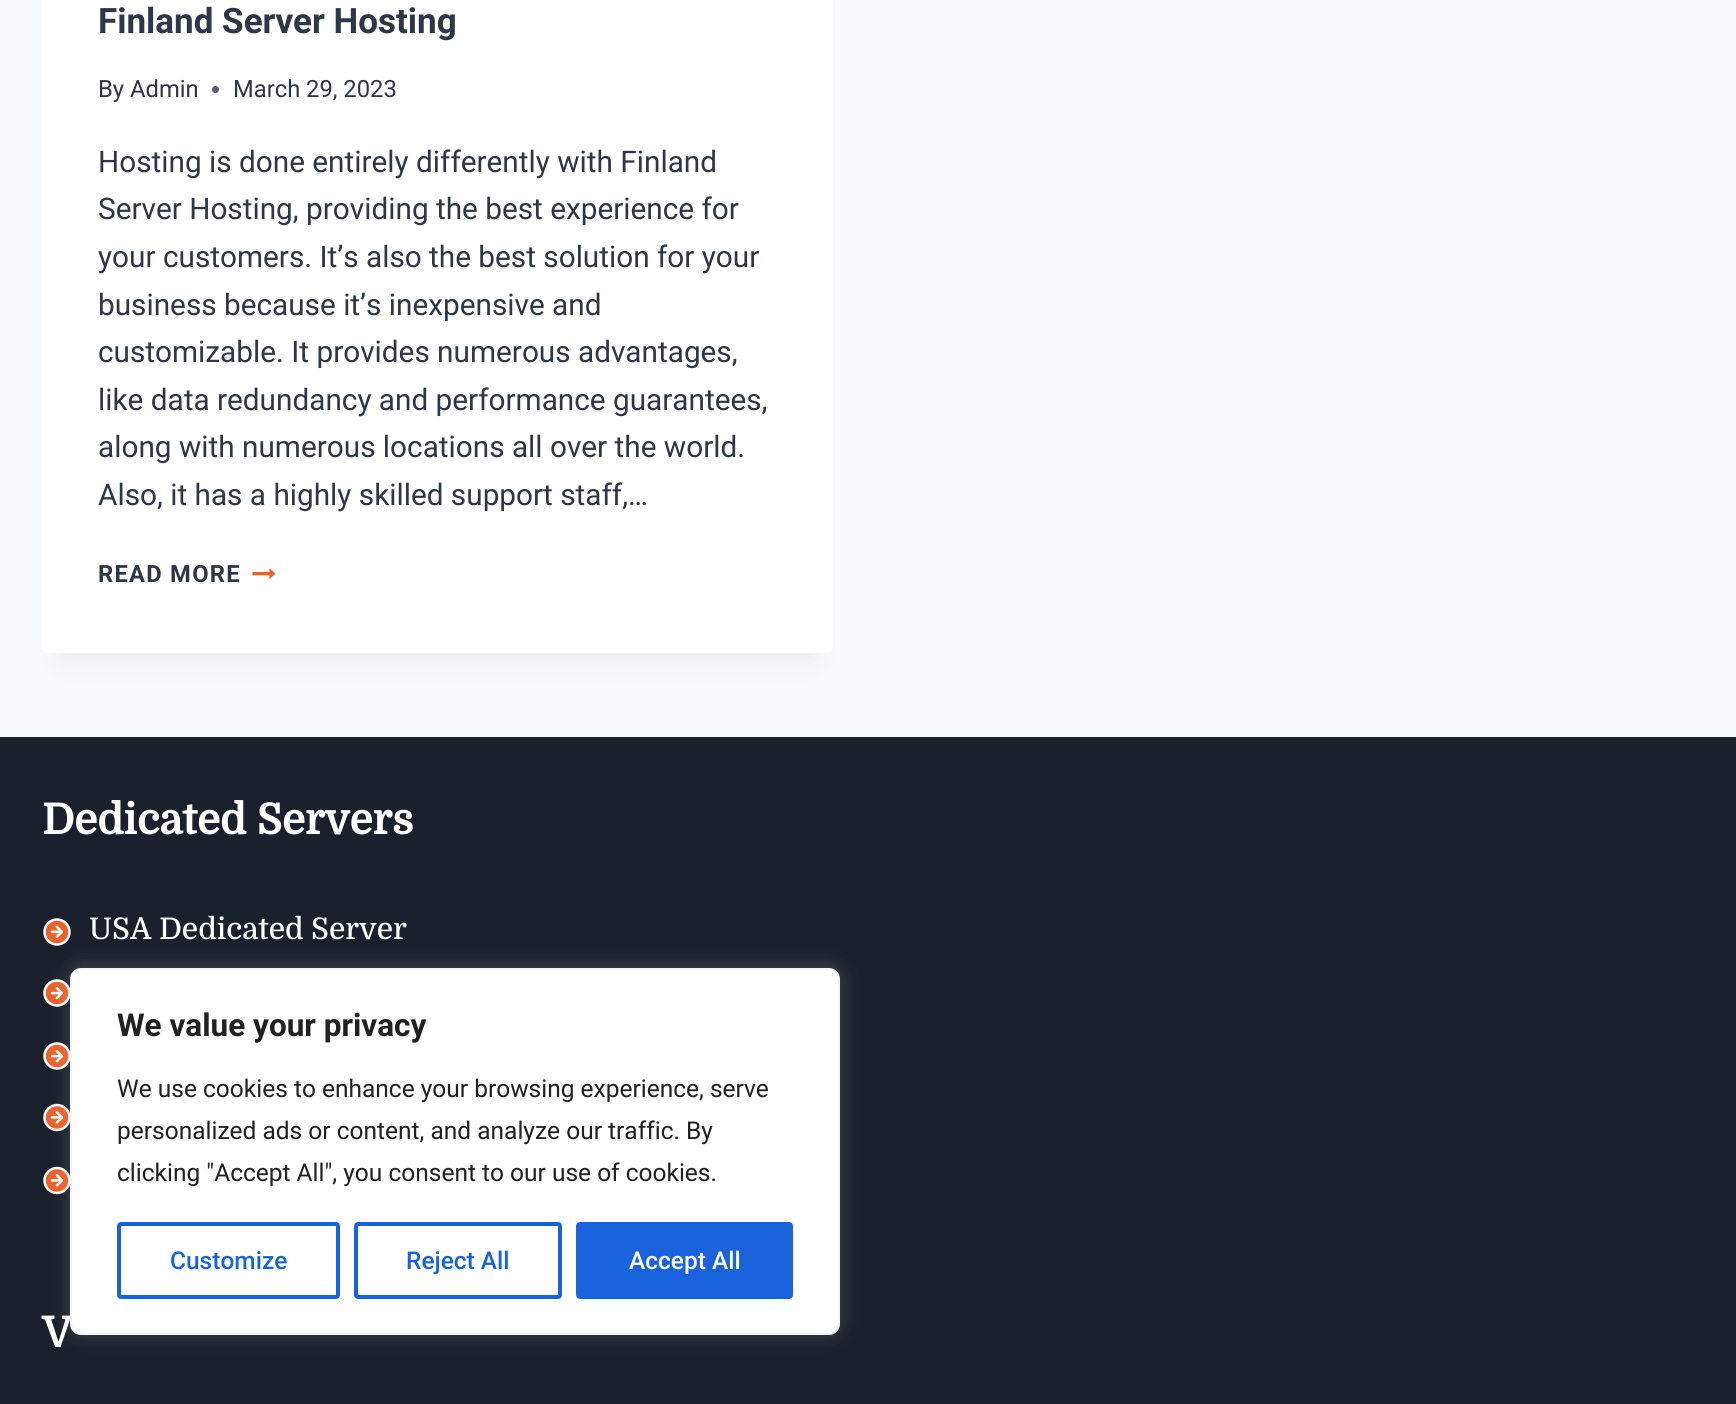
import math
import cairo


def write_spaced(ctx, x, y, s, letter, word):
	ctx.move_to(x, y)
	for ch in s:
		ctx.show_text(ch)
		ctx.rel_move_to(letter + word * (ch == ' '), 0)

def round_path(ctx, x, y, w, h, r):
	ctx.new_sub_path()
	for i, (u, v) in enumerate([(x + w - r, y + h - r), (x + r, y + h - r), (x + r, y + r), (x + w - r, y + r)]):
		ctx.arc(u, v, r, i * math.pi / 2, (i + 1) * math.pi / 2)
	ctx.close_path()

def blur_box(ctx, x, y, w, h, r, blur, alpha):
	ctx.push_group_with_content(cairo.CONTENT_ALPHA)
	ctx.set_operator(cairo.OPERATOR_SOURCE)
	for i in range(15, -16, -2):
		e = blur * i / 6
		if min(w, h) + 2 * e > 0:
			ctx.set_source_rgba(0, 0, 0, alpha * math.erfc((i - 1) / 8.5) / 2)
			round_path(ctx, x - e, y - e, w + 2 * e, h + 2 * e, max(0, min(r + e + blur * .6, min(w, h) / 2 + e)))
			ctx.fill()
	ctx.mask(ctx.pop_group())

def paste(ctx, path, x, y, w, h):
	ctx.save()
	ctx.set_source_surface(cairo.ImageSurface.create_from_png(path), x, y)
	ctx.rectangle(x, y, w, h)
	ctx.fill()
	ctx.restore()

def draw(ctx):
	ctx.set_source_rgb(0.969, 0.98, 0.988)
	ctx.paint()
	ctx.set_source_rgb(0, 0, 0)
	blur_box(ctx, 60, -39, 756, 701, 0, 13, 0.05)
	ctx.set_source_rgb(1, 1, 1)
	round_path(ctx, 42, -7, 791, 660, 7)
	ctx.fill()
	ctx.select_font_face('Roboto', cairo.FONT_SLANT_NORMAL, cairo.FONT_WEIGHT_BOLD)
	ctx.set_font_size(35)
	ctx.set_source_rgb(0.176, 0.216, 0.282)
	ctx.move_to(98, 33)
	ctx.show_text('Finland Server Hosting')
	ctx.select_font_face('Roboto')
	ctx.set_font_size(23.75)
	ctx.move_to(98, 97)
	ctx.show_text('By')
	ctx.move_to(130, 97)
	ctx.show_text('Admin')
	ctx.set_source_rgb(0.341, 0.373, 0.427)
	ctx.new_path()
	ctx.arc(215.5, 89.5, 3.5, 0, 2 * math.pi)
	ctx.fill()
	ctx.set_source_rgb(0.176, 0.216, 0.282)
	ctx.move_to(233, 97)
	ctx.show_text('March 29, 2023')
	ctx.set_font_size(29.75)
	for x, y, s in [
		(98, 172, 'Hosting is done entirely differently with Finland'),
		(98, 219, 'Server Hosting, providing the best experience for'),
		(98, 267, 'your customers. It’s also the best solution for your'),
		(98, 315, 'business because it’s inexpensive and'),
		(98, 362, 'customizable. It provides numerous advantages,'),
		(98, 410, 'like data redundancy and performance guarantees,'),
		(98, 457, 'along with numerous locations all over the world.'),
		(98, 505, 'Also, it has a highly skilled support staff,…'),
	]:
		ctx.move_to(x, y)
		ctx.show_text(s)
	ctx.select_font_face('Roboto', cairo.FONT_SLANT_NORMAL, cairo.FONT_WEIGHT_BOLD)
	ctx.set_font_size(23.75)
	write_spaced(ctx, 98, 582, 'READ MORE', 1.25, 0)
	paste(ctx, 'media/1.png', 252, 568, 24, 11)
	ctx.set_source_rgb(0.102, 0.125, 0.173)
	ctx.rectangle(0, 737, 1736, 667)
	ctx.fill()
	ctx.select_font_face('Domine', cairo.FONT_SLANT_NORMAL, cairo.FONT_WEIGHT_BOLD)
	ctx.set_font_size(42)
	ctx.set_source_rgb(1, 1, 1)
	ctx.move_to(42, 834)
	ctx.show_text('Dedicated Servers')
	paste(ctx, 'media/2.png', 43, 918, 28, 28)
	ctx.select_font_face('Domine Medium')
	ctx.set_font_size(29.75)
	ctx.move_to(89, 939)
	ctx.show_text('USA Dedicated Server')
	paste(ctx, 'media/3.png', 43, 979, 27, 28)
	paste(ctx, 'media/3.png', 43, 1042, 27, 28)
	paste(ctx, 'media/4.png', 43, 1103, 27, 29)
	paste(ctx, 'media/4.png', 43, 1166, 27, 29)
	ctx.select_font_face('Domine', cairo.FONT_SLANT_NORMAL, cairo.FONT_WEIGHT_BOLD)
	ctx.set_font_size(42)
	ctx.move_to(42, 1347)
	ctx.show_text('V')
	ctx.set_source_rgb(0.675, 0.671, 0.671)
	blur_box(ctx, 70, 966, 770, 368, 11, 9, 0.3)
	ctx.set_source_rgb(1, 1, 1)
	round_path(ctx, 71, 969, 768, 365, 10)
	ctx.fill_preserve()
	ctx.set_source_rgb(0.957, 0.957, 0.957)
	ctx.stroke()
	ctx.select_font_face('Roboto', cairo.FONT_SLANT_NORMAL, cairo.FONT_WEIGHT_BOLD)
	ctx.set_font_size(31.5)
	ctx.set_source_rgb(0.129, 0.129, 0.129)
	ctx.move_to(117, 1036)
	ctx.show_text('We value your privacy')
	ctx.select_font_face('Roboto')
	ctx.set_font_size(24.5)
	for x, y, s in [
		(117, 1097, 'We use cookies to enhance your browsing experience, serve'),
		(117, 1139, 'personalized ads or content, and analyze our traffic. By'),
		(117, 1181, 'clicking "Accept All", you consent to our use of cookies.'),
	]:
		ctx.move_to(x, y)
		ctx.show_text(s)
	round_path(ctx, 119, 1224, 219, 73, 2)
	ctx.set_source_rgb(0.094, 0.388, 0.863)
	ctx.set_line_width(4)
	ctx.stroke()
	ctx.select_font_face('Roboto Medium')
	ctx.move_to(170, 1269)
	ctx.show_text('Customize')
	round_path(ctx, 356, 1224, 204, 73, 2)
	ctx.stroke()
	ctx.move_to(406, 1269)
	ctx.show_text('Reject All')
	round_path(ctx, 578, 1224, 213, 73, 2)
	ctx.fill_preserve()
	ctx.stroke()
	ctx.set_source_rgb(1, 1, 1)
	ctx.move_to(629, 1269)
	ctx.show_text('Accept All')


surface = cairo.ImageSurface(cairo.FORMAT_RGB24, 1736, 1404)
ctx = cairo.Context(surface)
options = cairo.FontOptions()
options.set_hint_metrics(cairo.HINT_METRICS_OFF)
options.set_hint_style(cairo.HINT_STYLE_NONE)
ctx.set_font_options(options)
ctx.set_miter_limit(4)
draw(ctx)
surface.write_to_png('image.png')
